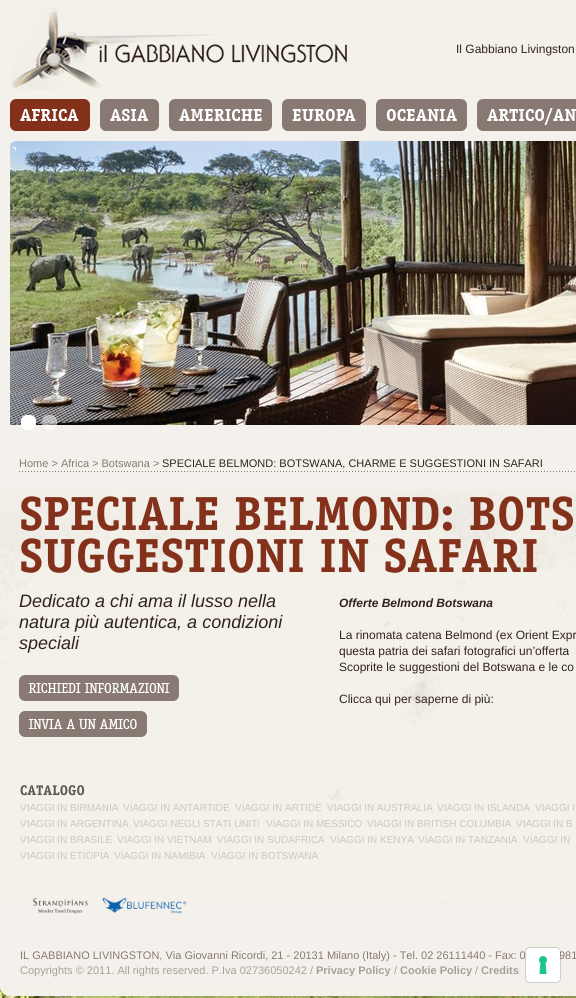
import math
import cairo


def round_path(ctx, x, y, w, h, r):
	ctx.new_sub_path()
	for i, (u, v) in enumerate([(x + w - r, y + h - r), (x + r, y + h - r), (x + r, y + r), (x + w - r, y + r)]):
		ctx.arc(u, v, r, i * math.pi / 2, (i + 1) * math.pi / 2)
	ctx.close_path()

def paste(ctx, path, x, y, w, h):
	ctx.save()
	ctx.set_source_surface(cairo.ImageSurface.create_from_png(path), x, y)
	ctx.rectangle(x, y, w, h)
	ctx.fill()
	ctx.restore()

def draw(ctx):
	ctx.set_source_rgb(1, 1, 1)
	ctx.paint()
	paste(ctx, 'media/1.png', 0, 986, 576, 12)
	paste(ctx, 'media/2.png', 0, 0, 576, 131)
	paste(ctx, 'media/3.png', 11, 7, 336, 83)
	ctx.select_font_face('Liberation Sans')
	ctx.set_font_size(12)
	ctx.set_source_rgb(0.192, 0.137, 0.098)
	ctx.move_to(456, 53)
	ctx.show_text('Il Gabbiano Livingston')
	paste(ctx, 'media/4.png', 10, 99, 80, 32)
	paste(ctx, 'media/5.png', 100, 99, 59, 32)
	paste(ctx, 'media/6.png', 169, 99, 103, 32)
	paste(ctx, 'media/7.png', 282, 99, 84, 32)
	paste(ctx, 'media/8.png', 376, 99, 91, 32)
	paste(ctx, 'media/9.png', 477, 99, 99, 32)
	ctx.set_source_rgb(0.957, 0.945, 0.922)
	ctx.rectangle(0, 131, 576, 855)
	ctx.fill()
	paste(ctx, 'media/10.png', 10, 141, 566, 284)
	paste(ctx, 'media/11.png', 10, 141, 5, 5)
	paste(ctx, 'media/12.png', 11, 147, 5, 5)
	paste(ctx, 'media/13.png', 21, 415, 15, 15)
	paste(ctx, 'media/14.png', 42, 415, 15, 15)
	paste(ctx, 'media/15.png', 0, 489, 576, 415)
	ctx.set_font_size(11)
	ctx.set_source_rgb(0.533, 0.478, 0.451)
	ctx.move_to(19, 467)
	ctx.show_text('Home > Africa > Botswana >')
	ctx.set_source_rgb(0.192, 0.137, 0.098)
	ctx.move_to(162, 467)
	ctx.show_text('SPECIALE BELMOND: BOTSWANA, CHARME E SUGGESTIONI IN SAFARI')
	paste(ctx, 'media/16.png', 19, 471, 556, 1)
	ctx.select_font_face('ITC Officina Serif', cairo.FONT_SLANT_NORMAL, cairo.FONT_WEIGHT_BOLD)
	ctx.set_font_size(48)
	ctx.set_source_rgb(0.518, 0.192, 0.11)
	ctx.move_to(19, 530)
	ctx.show_text('SPECIALE BELMOND: BOTS')
	ctx.move_to(19, 572)
	ctx.show_text('SUGGESTIONI IN SAFARI')
	ctx.select_font_face('Liberation Sans', cairo.FONT_SLANT_ITALIC)
	ctx.set_font_size(18)
	ctx.set_source_rgb(0.192, 0.137, 0.098)
	for x, y, s in [
		(19, 607, 'Dedicato a chi ama il lusso nella'),
		(19, 628, 'natura più autentica, a condizioni'),
		(19, 649, 'speciali'),
	]:
		ctx.move_to(x, y)
		ctx.show_text(s)
	paste(ctx, 'media/17.png', 19, 675, 160, 26)
	paste(ctx, 'media/18.png', 19, 711, 128, 26)
	ctx.select_font_face('Liberation Sans', cairo.FONT_SLANT_ITALIC, cairo.FONT_WEIGHT_BOLD)
	ctx.set_font_size(12)
	ctx.move_to(339, 607)
	ctx.show_text('Offerte Belmond Botswana')
	ctx.select_font_face('Liberation Sans')
	for x, y, s in [
		(339, 639, 'La rinomata catena Belmond (ex Orient Expr'),
		(339, 655, 'questa patria dei safari fotografici un’offerta'),
		(339, 671, 'Scoprite le suggestioni del Botswana e le co'),
		(339, 703, 'Clicca qui per saperne di più:'),
	]:
		ctx.move_to(x, y)
		ctx.show_text(s)
	ctx.select_font_face('ITC Officina Serif', cairo.FONT_SLANT_NORMAL, cairo.FONT_WEIGHT_BOLD)
	ctx.set_font_size(14)
	ctx.set_source_rgb(0.373, 0.333, 0.314)
	ctx.move_to(20, 795)
	ctx.show_text('CATALOGO')
	ctx.select_font_face('Liberation Sans')
	ctx.set_font_size(10)
	ctx.set_source_rgb(0.796, 0.773, 0.749)
	for x, y, s in [
		(20, 811, 'VIAGGI IN BIRMANIA'),
		(123, 811, 'VIAGGI IN ANTARTIDE'),
		(235, 811, 'VIAGGI IN ARTIDE'),
		(327, 811, 'VIAGGI IN AUSTRALIA'),
		(437, 811, 'VIAGGI IN ISLANDA'),
		(535, 811, 'VIAGGI I'),
		(20, 827, 'VIAGGI IN ARGENTINA'),
		(133, 827, 'VIAGGI NEGLI STATI UNITI'),
		(266, 827, 'VIAGGI IN MESSICO'),
		(367, 827, 'VIAGGI IN BRITISH COLUMBIA'),
		(516, 827, 'VIAGGI IN B'),
		(20, 843, 'VIAGGI IN BRASILE'),
		(117, 843, 'VIAGGI IN VIETNAM'),
		(217, 843, 'VIAGGI IN SUDAFRICA'),
		(330, 843, 'VIAGGI IN KENYA'),
		(418, 843, 'VIAGGI IN TANZANIA'),
		(523, 843, 'VIAGGI IN'),
		(20, 859, 'VIAGGI IN ETIOPIA'),
		(114, 859, 'VIAGGI IN NAMIBIA'),
		(211, 859, 'VIAGGI IN BOTSWANA'),
	]:
		ctx.move_to(x, y)
		ctx.show_text(s)
	paste(ctx, 'media/19.png', 33, 897, 154, 17)
	ctx.set_font_size(11)
	ctx.set_source_rgb(0.533, 0.478, 0.451)
	ctx.move_to(20, 959)
	ctx.show_text('IL GABBIANO LIVINGSTON, Via Giovanni Ricordi, 21 - 20131 Milano (Italy) - Tel. 02 26111440 - Fax: 0')
	ctx.move_to(559, 959)
	ctx.show_text('981')
	ctx.set_source_rgb(0.655, 0.627, 0.596)
	ctx.move_to(20, 974)
	ctx.show_text('Copyrights © 2011. All rights reserved. P.Iva 02736050242 /')
	ctx.select_font_face('Liberation Sans', cairo.FONT_SLANT_NORMAL, cairo.FONT_WEIGHT_BOLD)
	ctx.move_to(316, 974)
	ctx.show_text('Privacy Policy')
	ctx.select_font_face('Liberation Sans')
	ctx.move_to(394, 974)
	ctx.show_text('/')
	ctx.select_font_face('Liberation Sans', cairo.FONT_SLANT_NORMAL, cairo.FONT_WEIGHT_BOLD)
	ctx.move_to(400, 974)
	ctx.show_text('Cookie Policy')
	ctx.select_font_face('Liberation Sans')
	ctx.move_to(475, 974)
	ctx.show_text('/')
	ctx.select_font_face('Liberation Sans', cairo.FONT_SLANT_NORMAL, cairo.FONT_WEIGHT_BOLD)
	ctx.move_to(481, 974)
	ctx.show_text('Credits')
	paste(ctx, 'media/20.png', 0, 986, 576, 10)
	round_path(ctx, 525.5, 947.5, 35, 35, 4.5)
	ctx.set_source_rgba(0, 0, 0, 0.15)
	ctx.set_line_width(1)
	ctx.stroke()
	ctx.set_source_rgb(1, 1, 1)
	round_path(ctx, 526, 948, 34, 34, 4)
	ctx.fill()
	paste(ctx, 'media/21.png', 539, 956, 8, 18)


surface = cairo.ImageSurface(cairo.FORMAT_RGB24, 576, 998)
ctx = cairo.Context(surface)
options = cairo.FontOptions()
options.set_hint_metrics(cairo.HINT_METRICS_OFF)
options.set_hint_style(cairo.HINT_STYLE_NONE)
ctx.set_font_options(options)
ctx.set_miter_limit(4)
draw(ctx)
surface.write_to_png('image.png')
